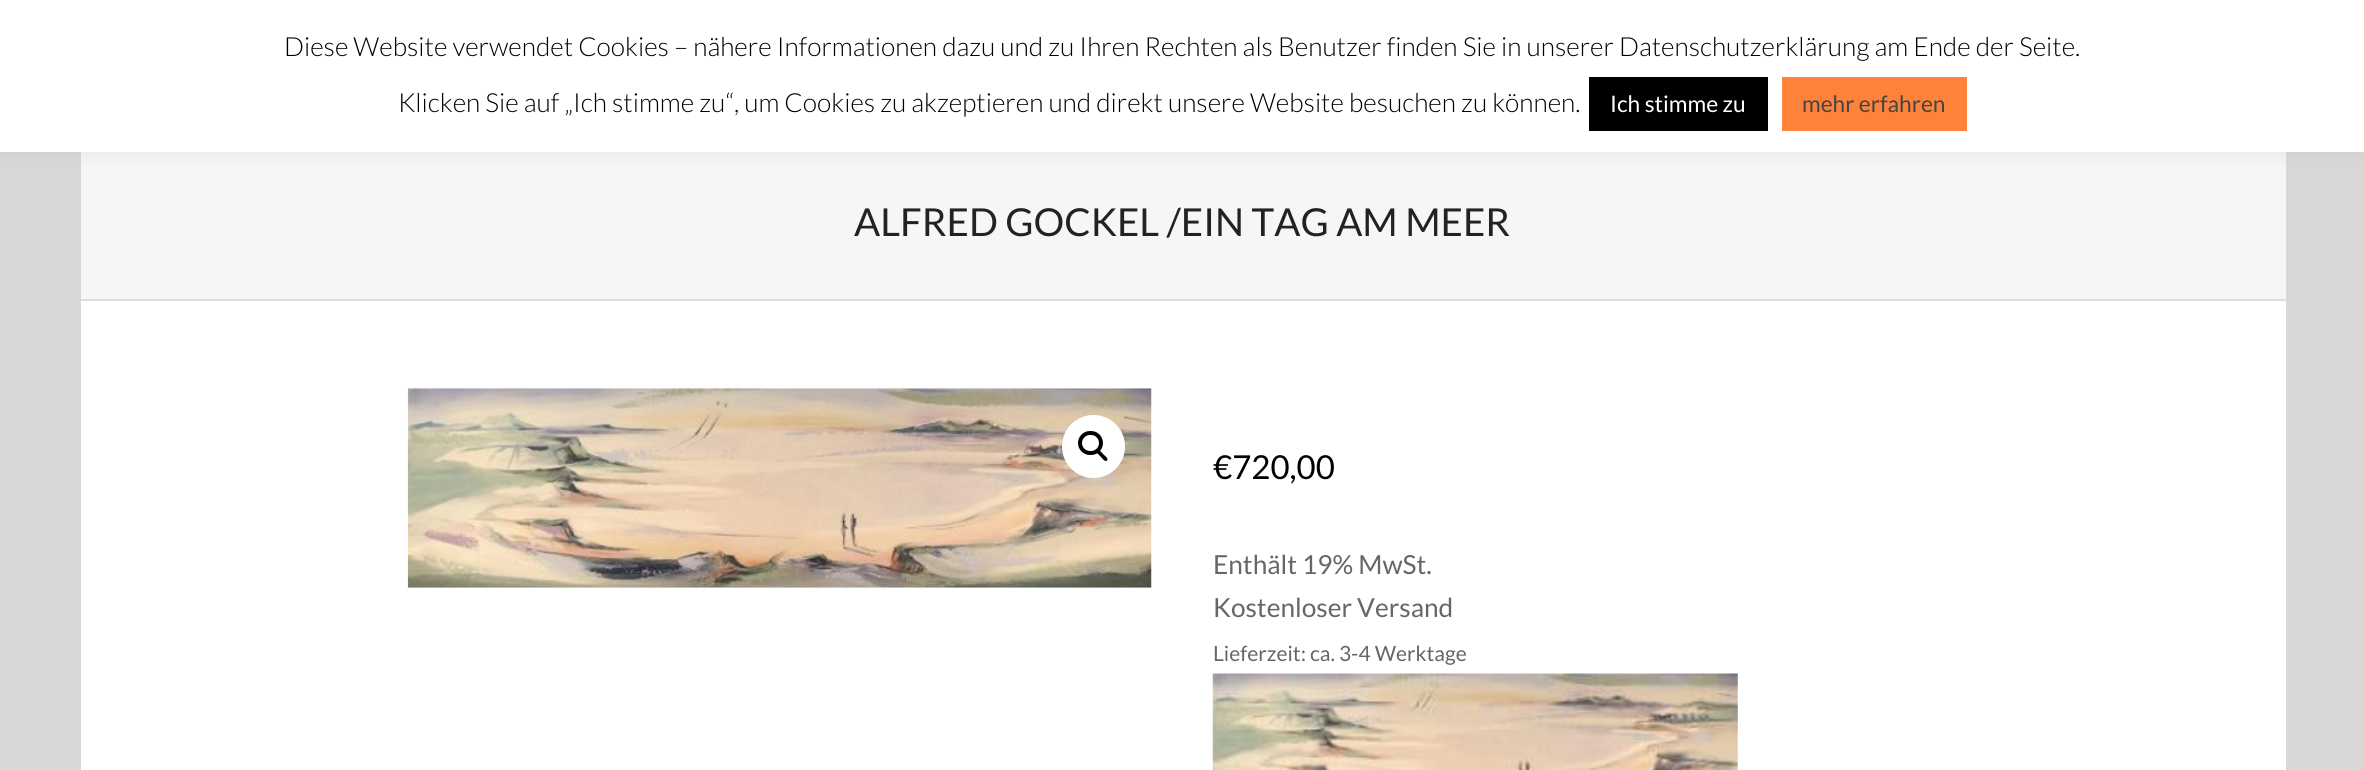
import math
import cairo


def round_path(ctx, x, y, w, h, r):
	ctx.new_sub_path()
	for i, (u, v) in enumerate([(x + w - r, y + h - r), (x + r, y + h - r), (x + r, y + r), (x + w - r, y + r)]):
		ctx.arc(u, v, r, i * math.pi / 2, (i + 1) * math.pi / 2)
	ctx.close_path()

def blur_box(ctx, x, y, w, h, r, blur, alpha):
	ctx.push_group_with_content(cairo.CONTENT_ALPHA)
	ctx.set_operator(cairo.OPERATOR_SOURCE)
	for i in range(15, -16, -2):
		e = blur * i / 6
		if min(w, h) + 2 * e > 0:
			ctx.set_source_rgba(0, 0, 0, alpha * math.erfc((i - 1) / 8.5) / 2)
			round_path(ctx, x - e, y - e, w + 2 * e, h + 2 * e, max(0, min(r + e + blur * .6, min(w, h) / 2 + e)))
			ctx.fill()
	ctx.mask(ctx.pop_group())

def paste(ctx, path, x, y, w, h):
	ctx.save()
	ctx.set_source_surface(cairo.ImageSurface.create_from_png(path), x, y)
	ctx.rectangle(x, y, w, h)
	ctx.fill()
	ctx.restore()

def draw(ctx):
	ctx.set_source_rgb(0.847, 0.847, 0.847)
	ctx.paint()
	ctx.set_source_rgb(0.961, 0.961, 0.961)
	ctx.rectangle(81, 152, 2205, 147)
	ctx.fill()
	ctx.set_source_rgb(0.675, 0.671, 0.671)
	blur_box(ctx, 0, -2, 2364, 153, 0, 9, 0.3)
	ctx.set_source_rgb(1, 1, 1)
	ctx.rectangle(0, 0, 2364, 152)
	ctx.fill()
	ctx.select_font_face('Lato Light')
	ctx.set_font_size(26.25)
	ctx.set_source_rgb(0, 0, 0)
	ctx.move_to(284, 56)
	ctx.show_text('Diese Website verwendet Cookies – nähere Informationen dazu und zu Ihren Rechten als Benutzer finden Sie in unserer Datenschutzerklärung am Ende der Seite.')
	ctx.move_to(398, 112)
	ctx.show_text('Klicken Sie auf „Ich stimme zu“, um Cookies zu akzeptieren und direkt unsere Website besuchen zu können.')
	ctx.rectangle(1589, 77, 179, 54)
	ctx.fill()
	ctx.select_font_face('Lato')
	ctx.set_font_size(22.75)
	ctx.set_source_rgb(1, 1, 1)
	ctx.move_to(1610, 112)
	ctx.show_text('Ich stimme zu')
	ctx.set_source_rgb(1, 0.51, 0.227)
	ctx.rectangle(1782, 77, 185, 54)
	ctx.fill()
	ctx.set_source_rgb(0.267, 0.267, 0.267)
	ctx.move_to(1802, 112)
	ctx.show_text('mehr erfahren')
	ctx.set_source_rgb(1, 1, 1)
	ctx.rectangle(81, 301, 2205, 469)
	ctx.fill()
	ctx.set_source_rgb(0.867, 0.867, 0.867)
	ctx.rectangle(81, 299, 2205, 2)
	ctx.fill()
	ctx.set_font_size(38.5)
	ctx.set_source_rgb(0.133, 0.133, 0.133)
	ctx.move_to(854, 236)
	ctx.show_text('ALFRED GOCKEL /EIN TAG AM MEER')
	paste(ctx, 'media/1.png', 407, 388, 745, 200)
	ctx.set_source_rgb(1, 1, 1)
	ctx.arc(1093.5, 446.5, 31.5, 0, 2 * math.pi)
	ctx.fill()
	round_path(ctx, 1080, 433, 21, 20, 10)
	ctx.set_source_rgb(0, 0, 0)
	ctx.set_line_width(4)
	ctx.stroke()
	ctx.new_path()
	ctx.move_to(1097, 450.5)
	ctx.curve_to(1099, 448.5, 1102.5, 453.5, 1103.5, 454.5)
	ctx.curve_to(1104.5, 455.5, 1109, 458.5, 1107, 460.5)
	ctx.curve_to(1105, 462.5, 1102, 458, 1101, 457)
	ctx.curve_to(1100, 455.5, 1095, 452.5, 1097, 450.5)
	ctx.close_path()
	ctx.fill()
	ctx.set_font_size(33)
	ctx.move_to(1213, 479)
	ctx.show_text('€720,00')
	ctx.set_font_size(26.25)
	ctx.set_source_rgb(0.4, 0.4, 0.4)
	ctx.move_to(1213, 574)
	ctx.show_text('Enthält 19% MwSt.')
	ctx.move_to(1213, 617)
	ctx.show_text('Kostenloser Versand')
	ctx.set_font_size(21)
	ctx.move_to(1213, 661)
	ctx.show_text('Lieferzeit: ca. 3-4 Werktage')
	paste(ctx, 'media/2.png', 1212, 673, 526, 97)


surface = cairo.ImageSurface(cairo.FORMAT_RGB24, 2364, 770)
ctx = cairo.Context(surface)
options = cairo.FontOptions()
options.set_hint_metrics(cairo.HINT_METRICS_OFF)
options.set_hint_style(cairo.HINT_STYLE_NONE)
ctx.set_font_options(options)
ctx.set_miter_limit(4)
draw(ctx)
surface.write_to_png('image.png')
